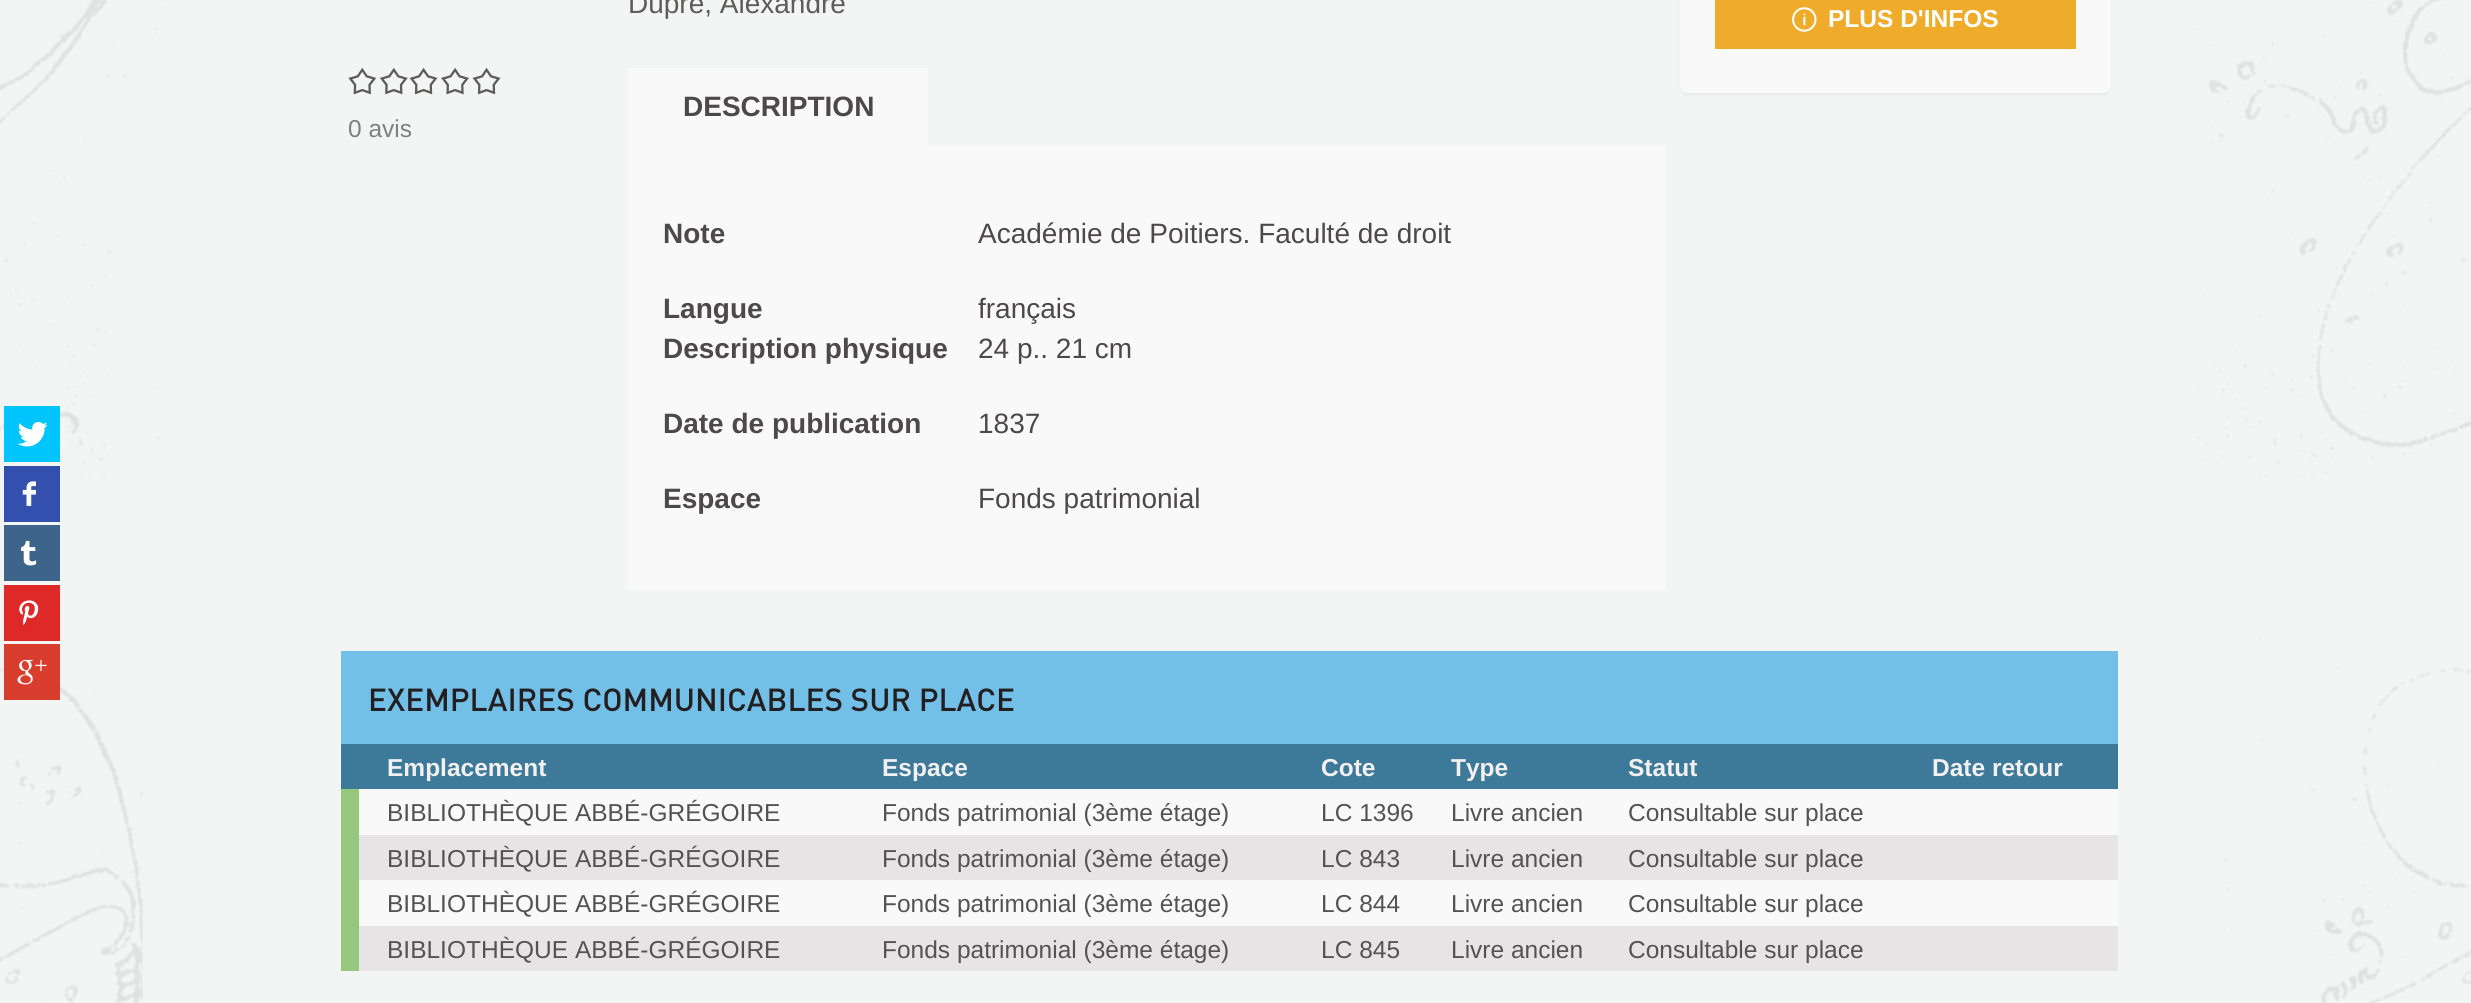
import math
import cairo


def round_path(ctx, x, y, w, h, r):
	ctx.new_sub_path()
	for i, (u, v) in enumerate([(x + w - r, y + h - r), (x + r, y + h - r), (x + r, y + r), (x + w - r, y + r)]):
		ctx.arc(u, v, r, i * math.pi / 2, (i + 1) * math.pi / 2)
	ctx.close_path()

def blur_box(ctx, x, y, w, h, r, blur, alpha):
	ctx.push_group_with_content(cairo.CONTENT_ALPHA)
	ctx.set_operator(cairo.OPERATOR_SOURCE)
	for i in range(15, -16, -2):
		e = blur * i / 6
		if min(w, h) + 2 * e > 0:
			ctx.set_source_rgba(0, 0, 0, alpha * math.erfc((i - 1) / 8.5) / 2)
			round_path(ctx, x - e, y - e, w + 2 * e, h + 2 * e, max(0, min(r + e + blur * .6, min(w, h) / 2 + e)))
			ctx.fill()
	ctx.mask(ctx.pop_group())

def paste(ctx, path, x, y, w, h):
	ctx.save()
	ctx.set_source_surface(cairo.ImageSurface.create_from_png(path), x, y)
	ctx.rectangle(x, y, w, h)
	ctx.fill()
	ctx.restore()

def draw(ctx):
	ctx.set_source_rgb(0.953, 0.957, 0.957)
	ctx.paint()
	paste(ctx, 'media/1.png', 0, 0, 2471, 1003)
	ctx.set_source_rgb(0, 0.769, 0.988)
	ctx.rectangle(4, 406, 56, 56)
	ctx.fill()
	paste(ctx, 'media/2.png', 17, 421, 31, 26)
	ctx.set_source_rgb(0.2, 0.314, 0.682)
	ctx.rectangle(4, 466, 56, 56)
	ctx.fill()
	paste(ctx, 'media/3.png', 22, 481, 14, 25)
	ctx.set_source_rgb(0.239, 0.396, 0.545)
	ctx.rectangle(4, 525, 56, 56)
	ctx.fill()
	paste(ctx, 'media/4.png', 21, 540, 16, 26)
	ctx.set_source_rgb(0.875, 0.157, 0.157)
	ctx.rectangle(4, 585, 56, 56)
	ctx.fill()
	paste(ctx, 'media/5.png', 19, 600, 20, 25)
	ctx.set_source_rgb(0.847, 0.239, 0.176)
	ctx.rectangle(4, 644, 56, 56)
	ctx.fill()
	paste(ctx, 'media/6.png', 17, 659, 30, 26)
	paste(ctx, 'media/7.png', 348, 67, 29, 28)
	paste(ctx, 'media/8.png', 380, 67, 28, 28)
	paste(ctx, 'media/9.png', 409, 67, 29, 28)
	paste(ctx, 'media/10.png', 441, 67, 28, 28)
	paste(ctx, 'media/9.png', 472, 67, 29, 28)
	ctx.select_font_face('Liberation Sans')
	ctx.set_font_size(24.5)
	ctx.set_source_rgb(0.502, 0.502, 0.502)
	ctx.move_to(348, 137)
	ctx.show_text('0 avis')
	ctx.set_font_size(28)
	ctx.set_source_rgb(0.373, 0.357, 0.357)
	ctx.move_to(628, 13)
	ctx.show_text('Dupre, Alexandre')
	ctx.set_source_rgb(0.98, 0.973, 0.976)
	ctx.rectangle(628, 68, 300, 77)
	ctx.fill()
	ctx.select_font_face('Liberation Sans', cairo.FONT_SLANT_NORMAL, cairo.FONT_WEIGHT_BOLD)
	ctx.set_source_rgb(0.294, 0.286, 0.29)
	ctx.move_to(683, 116)
	ctx.show_text('DESCRIPTION')
	ctx.set_source_rgb(0.98, 0.973, 0.976)
	ctx.rectangle(628, 145, 1038, 445)
	ctx.fill()
	ctx.set_source_rgb(0.294, 0.286, 0.29)
	ctx.move_to(663, 243)
	ctx.show_text('Note')
	ctx.select_font_face('Liberation Sans')
	ctx.move_to(978, 243)
	ctx.show_text('Académie de Poitiers. Faculté de droit')
	ctx.select_font_face('Liberation Sans', cairo.FONT_SLANT_NORMAL, cairo.FONT_WEIGHT_BOLD)
	ctx.move_to(663, 318)
	ctx.show_text('Langue')
	ctx.select_font_face('Liberation Sans')
	ctx.move_to(978, 318)
	ctx.show_text('français')
	ctx.select_font_face('Liberation Sans', cairo.FONT_SLANT_NORMAL, cairo.FONT_WEIGHT_BOLD)
	ctx.move_to(663, 358)
	ctx.show_text('Description physique')
	ctx.select_font_face('Liberation Sans')
	ctx.move_to(978, 358)
	ctx.show_text('24 p.. 21 cm')
	ctx.select_font_face('Liberation Sans', cairo.FONT_SLANT_NORMAL, cairo.FONT_WEIGHT_BOLD)
	ctx.move_to(663, 433)
	ctx.show_text('Date de publication')
	ctx.select_font_face('Liberation Sans')
	ctx.move_to(978, 433)
	ctx.show_text('1837')
	ctx.select_font_face('Liberation Sans', cairo.FONT_SLANT_NORMAL, cairo.FONT_WEIGHT_BOLD)
	ctx.move_to(663, 508)
	ctx.show_text('Espace')
	ctx.select_font_face('Liberation Sans')
	ctx.move_to(978, 508)
	ctx.show_text('Fonds patrimonial')
	ctx.set_source_rgb(0, 0, 0)
	blur_box(ctx, 1680, -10, 431, 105, 7, 1, 0.05)
	ctx.set_source_rgb(0.98, 0.973, 0.976)
	round_path(ctx, 1680, -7, 431, 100, 7)
	ctx.fill()
	ctx.set_source_rgb(0.937, 0.675, 0.165)
	ctx.rectangle(1715, 0, 361, 49)
	ctx.fill()
	paste(ctx, 'media/11.png', 1792, 7, 25, 25)
	ctx.select_font_face('Liberation Sans', cairo.FONT_SLANT_NORMAL, cairo.FONT_WEIGHT_BOLD)
	ctx.set_font_size(24.5)
	ctx.set_source_rgb(1, 1, 1)
	ctx.move_to(1828, 27)
	ctx.show_text('PLUS D\'INFOS')
	ctx.set_source_rgb(0.447, 0.753, 0.91)
	ctx.rectangle(341, 651, 1777, 93)
	ctx.fill()
	ctx.select_font_face('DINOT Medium')
	ctx.set_font_size(31.5)
	ctx.set_source_rgb(0.137, 0.122, 0.125)
	ctx.move_to(368, 711)
	ctx.show_text('EXEMPLAIRES COMMUNICABLES SUR PLACE')
	ctx.set_source_rgb(0.239, 0.478, 0.6)
	ctx.rectangle(341, 744, 1777, 45)
	ctx.fill()
	ctx.select_font_face('Liberation Sans', cairo.FONT_SLANT_NORMAL, cairo.FONT_WEIGHT_BOLD)
	ctx.set_font_size(24.5)
	ctx.set_source_rgb(0.949, 0.941, 0.945)
	for x, y, s in [
		(387, 776, 'Emplacement'),
		(882, 776, 'Espace'),
		(1321, 776, 'Cote'),
		(1451, 776, 'Type'),
		(1628, 776, 'Statut'),
		(1932, 776, 'Date retour'),
	]:
		ctx.move_to(x, y)
		ctx.show_text(s)
	ctx.set_source_rgb(0.98, 0.973, 0.976)
	ctx.rectangle(359, 789, 1759, 46)
	ctx.fill()
	ctx.set_source_rgb(0.592, 0.776, 0.49)
	ctx.rectangle(341, 789, 18, 182)
	ctx.fill()
	ctx.select_font_face('Liberation Sans')
	ctx.set_source_rgb(0.325, 0.325, 0.325)
	for x, y, s in [
		(387, 821, 'BIBLIOTHÈQUE ABBÉ-GRÉGOIRE'),
		(882, 821, 'Fonds patrimonial (3ème étage)'),
		(1321, 821, 'LC 1396'),
		(1451, 821, 'Livre ancien'),
		(1628, 821, 'Consultable sur place'),
	]:
		ctx.move_to(x, y)
		ctx.show_text(s)
	ctx.set_source_rgb(0.902, 0.894, 0.898)
	ctx.rectangle(359, 835, 1759, 45)
	ctx.fill()
	ctx.set_source_rgb(0.325, 0.325, 0.325)
	for x, y, s in [
		(387, 867, 'BIBLIOTHÈQUE ABBÉ-GRÉGOIRE'),
		(882, 867, 'Fonds patrimonial (3ème étage)'),
		(1321, 867, 'LC 843'),
		(1451, 867, 'Livre ancien'),
		(1628, 867, 'Consultable sur place'),
	]:
		ctx.move_to(x, y)
		ctx.show_text(s)
	ctx.set_source_rgb(0.98, 0.973, 0.976)
	ctx.rectangle(359, 880, 1759, 46)
	ctx.fill()
	ctx.set_source_rgb(0.325, 0.325, 0.325)
	for x, y, s in [
		(387, 912, 'BIBLIOTHÈQUE ABBÉ-GRÉGOIRE'),
		(882, 912, 'Fonds patrimonial (3ème étage)'),
		(1321, 912, 'LC 844'),
		(1451, 912, 'Livre ancien'),
		(1628, 912, 'Consultable sur place'),
	]:
		ctx.move_to(x, y)
		ctx.show_text(s)
	ctx.set_source_rgb(0.902, 0.894, 0.898)
	ctx.rectangle(359, 926, 1759, 45)
	ctx.fill()
	ctx.set_source_rgb(0.325, 0.325, 0.325)
	for x, y, s in [
		(387, 958, 'BIBLIOTHÈQUE ABBÉ-GRÉGOIRE'),
		(882, 958, 'Fonds patrimonial (3ème étage)'),
		(1321, 958, 'LC 845'),
		(1451, 958, 'Livre ancien'),
		(1628, 958, 'Consultable sur place'),
	]:
		ctx.move_to(x, y)
		ctx.show_text(s)


surface = cairo.ImageSurface(cairo.FORMAT_RGB24, 2471, 1003)
ctx = cairo.Context(surface)
options = cairo.FontOptions()
options.set_hint_metrics(cairo.HINT_METRICS_OFF)
options.set_hint_style(cairo.HINT_STYLE_NONE)
ctx.set_font_options(options)
ctx.set_miter_limit(4)
draw(ctx)
surface.write_to_png('image.png')
